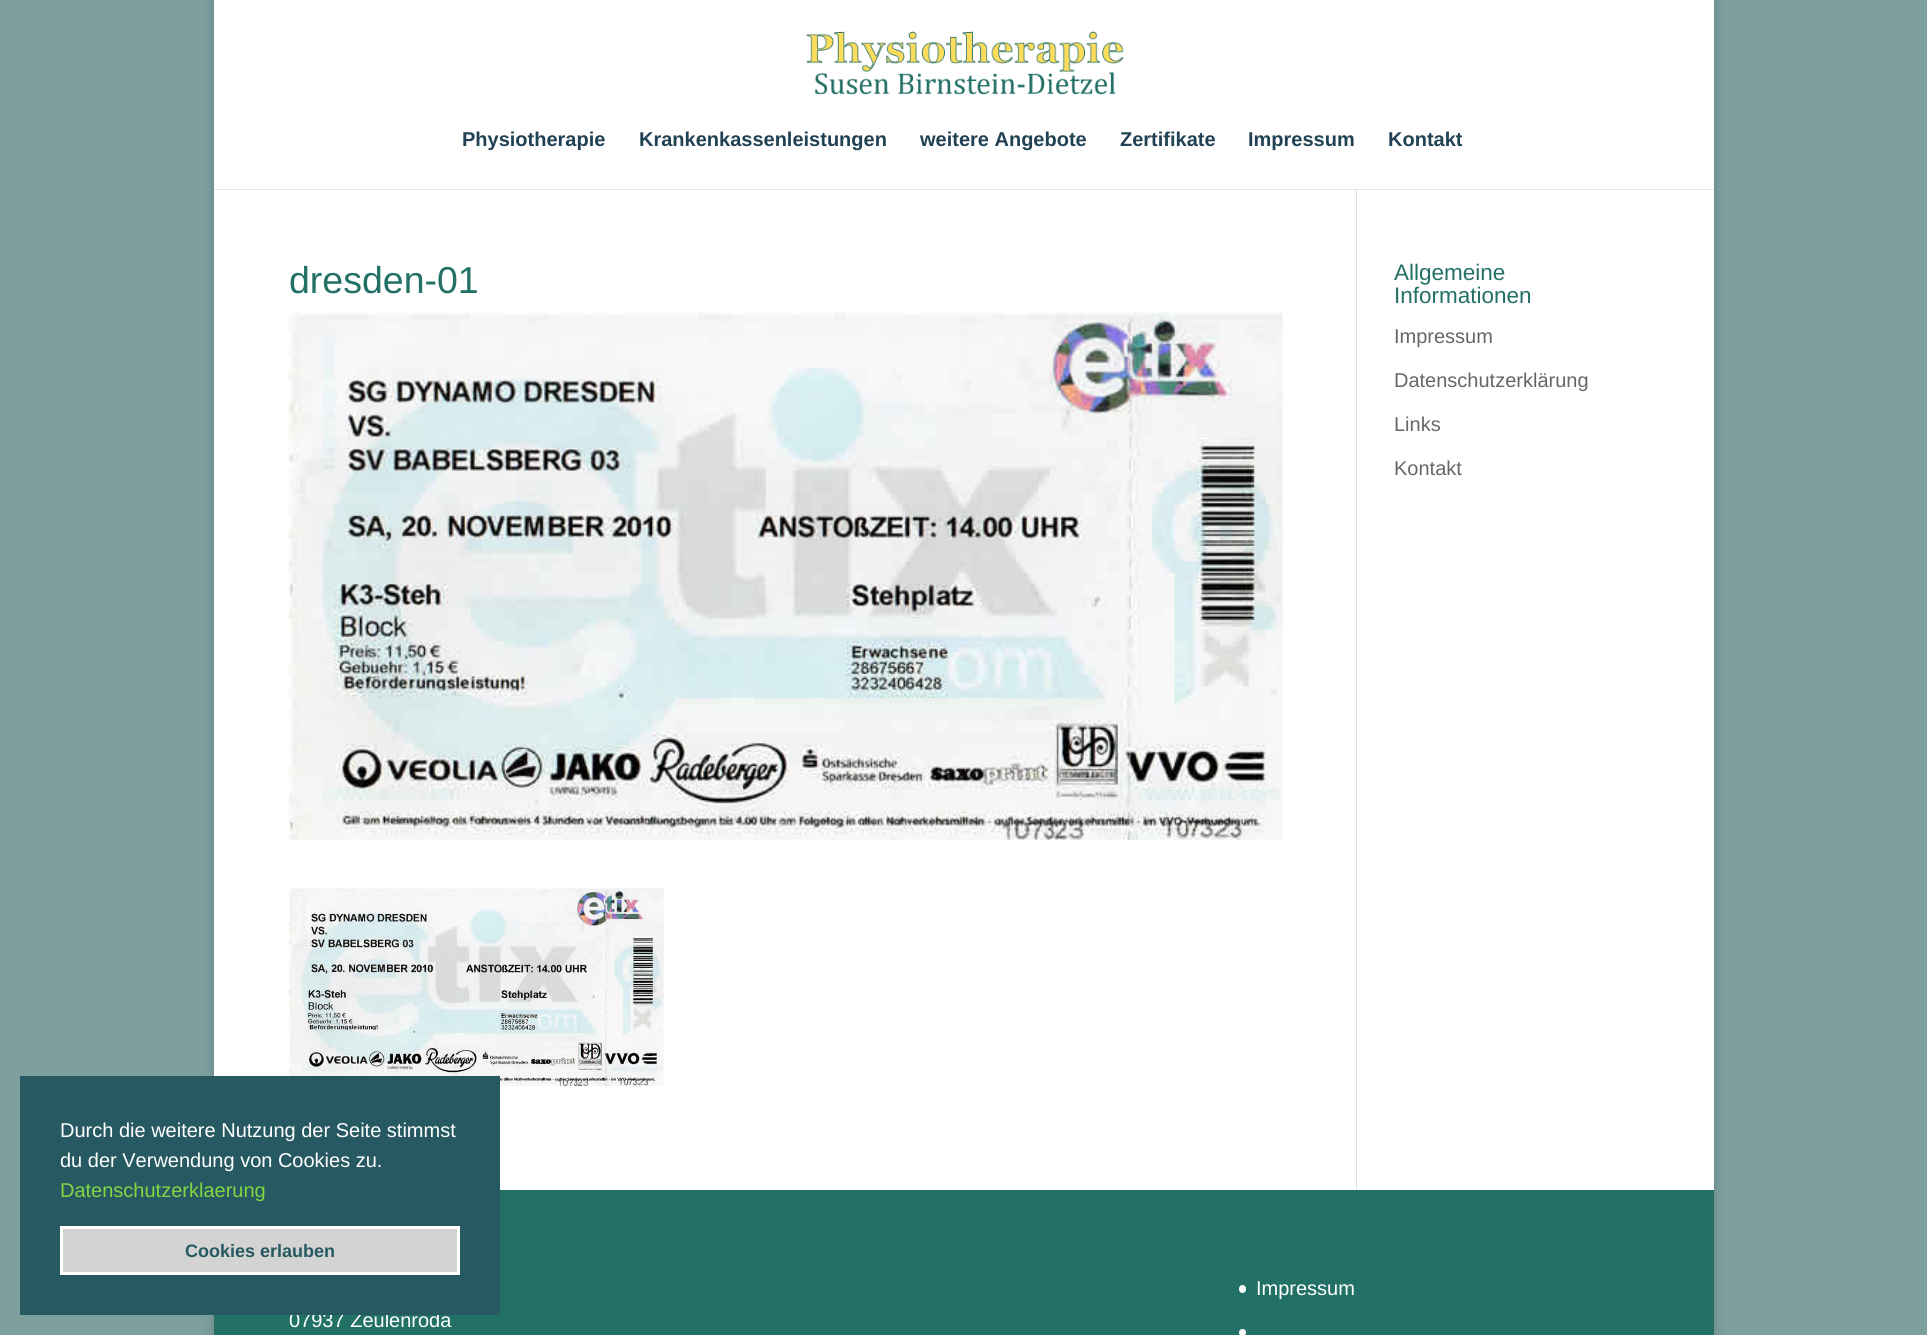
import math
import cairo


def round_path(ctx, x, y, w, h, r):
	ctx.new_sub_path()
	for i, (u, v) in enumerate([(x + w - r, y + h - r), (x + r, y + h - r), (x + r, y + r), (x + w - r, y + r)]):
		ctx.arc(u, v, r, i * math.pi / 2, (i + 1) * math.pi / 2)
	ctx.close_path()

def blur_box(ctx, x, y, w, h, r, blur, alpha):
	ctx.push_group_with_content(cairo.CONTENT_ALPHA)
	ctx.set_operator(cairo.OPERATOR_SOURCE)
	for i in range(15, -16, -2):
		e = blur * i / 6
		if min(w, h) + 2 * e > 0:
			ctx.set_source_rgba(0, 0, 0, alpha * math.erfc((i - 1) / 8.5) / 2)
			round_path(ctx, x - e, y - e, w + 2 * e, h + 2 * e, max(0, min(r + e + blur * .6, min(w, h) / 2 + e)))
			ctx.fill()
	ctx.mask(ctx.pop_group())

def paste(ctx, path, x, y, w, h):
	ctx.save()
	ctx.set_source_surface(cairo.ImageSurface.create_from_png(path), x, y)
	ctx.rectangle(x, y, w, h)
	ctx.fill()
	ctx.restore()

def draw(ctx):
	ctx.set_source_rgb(0.49, 0.627, 0.624)
	ctx.paint()
	ctx.set_source_rgb(0, 0, 0)
	blur_box(ctx, 214, 0, 1500, 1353, 0, 6, 0.2)
	ctx.set_source_rgb(1, 1, 1)
	ctx.rectangle(214, 0, 1500, 1190)
	ctx.fill()
	paste(ctx, 'media/3.png', 288, 887, 376, 200)
	ctx.set_source_rgb(0.133, 0.439, 0.4)
	ctx.rectangle(214, 1190, 1500, 145)
	ctx.fill()
	ctx.select_font_face('Liberation Sans')
	ctx.set_font_size(20)
	ctx.set_source_rgb(1, 1, 1)
	ctx.move_to(289, 1327)
	ctx.show_text('07937 Zeulenroda')
	ctx.set_source_rgb(0.149, 0.349, 0.38)
	ctx.rectangle(20, 1076, 480, 239)
	ctx.fill()
	ctx.set_source_rgb(1, 1, 1)
	ctx.move_to(60, 1137)
	ctx.show_text('Durch die weitere Nutzung der Seite stimmst')
	ctx.move_to(60, 1167)
	ctx.show_text('du der Verwendung von Cookies zu.')
	ctx.set_source_rgb(0.506, 0.843, 0.259)
	ctx.move_to(60, 1197)
	ctx.show_text('Datenschutzerklaerung')
	ctx.set_source_rgb(0.827, 0.827, 0.827)
	ctx.rectangle(61.5, 1227.5, 397, 46)
	ctx.fill_preserve()
	ctx.set_source_rgb(1, 1, 1)
	ctx.set_line_width(3)
	ctx.stroke()
	ctx.select_font_face('Liberation Sans', cairo.FONT_SLANT_NORMAL, cairo.FONT_WEIGHT_BOLD)
	ctx.set_font_size(18)
	ctx.set_source_rgb(0.149, 0.349, 0.38)
	ctx.move_to(185, 1257)
	ctx.show_text('Cookies erlauben')
	ctx.set_source_rgb(0.886, 0.886, 0.886)
	ctx.rectangle(1356, 189, 1, 1001)
	ctx.fill()
	ctx.set_source_rgba(0, 0, 0, 0.1)
	ctx.new_path()
	ctx.move_to(214, 189)
	ctx.line_to(214, 190)
	ctx.line_to(1714, 190)
	ctx.line_to(1714, 1)
	ctx.line_to(1714, 189)
	ctx.close_path()
	ctx.fill()
	paste(ctx, 'media/1.png', 806, 31, 318, 64)
	ctx.set_font_size(20)
	ctx.set_source_rgb(0.129, 0.255, 0.329)
	for x, y, s in [
		(462, 146, 'Physiotherapie'),
		(639, 146, 'Krankenkassenleistungen'),
		(920, 146, 'weitere Angebote'),
		(1120, 146, 'Zertifikate'),
		(1248, 146, 'Impressum'),
		(1388, 146, 'Kontakt'),
	]:
		ctx.move_to(x, y)
		ctx.show_text(s)
	ctx.select_font_face('Liberation Sans')
	ctx.set_font_size(37.5)
	ctx.set_source_rgb(0.133, 0.439, 0.4)
	ctx.move_to(289, 293)
	ctx.show_text('dresden-01')
	paste(ctx, 'media/2.png', 288, 311, 995, 529)
	ctx.set_font_size(22.5)
	ctx.move_to(1394, 280)
	ctx.show_text('Allgemeine')
	ctx.move_to(1394, 303)
	ctx.show_text('Informationen')
	ctx.set_font_size(20)
	ctx.set_source_rgb(0.4, 0.4, 0.4)
	for x, y, s in [
		(1394, 343, 'Impressum'),
		(1394, 387, 'Datenschutzerklärung'),
		(1394, 431, 'Links'),
		(1394, 475, 'Kontakt'),
	]:
		ctx.move_to(x, y)
		ctx.show_text(s)
	ctx.set_source_rgb(1, 1, 1)
	round_path(ctx, 1239, 1285, 7, 8, 3.5)
	ctx.fill()
	ctx.move_to(1256, 1295)
	ctx.show_text('Impressum')
	ctx.new_path()
	ctx.arc(1242.5, 1332.5, 3.5, 0, 2 * math.pi)
	ctx.fill()


surface = cairo.ImageSurface(cairo.FORMAT_RGB24, 1927, 1335)
ctx = cairo.Context(surface)
options = cairo.FontOptions()
options.set_hint_metrics(cairo.HINT_METRICS_OFF)
options.set_hint_style(cairo.HINT_STYLE_NONE)
ctx.set_font_options(options)
ctx.set_miter_limit(4)
draw(ctx)
surface.write_to_png('image.png')
